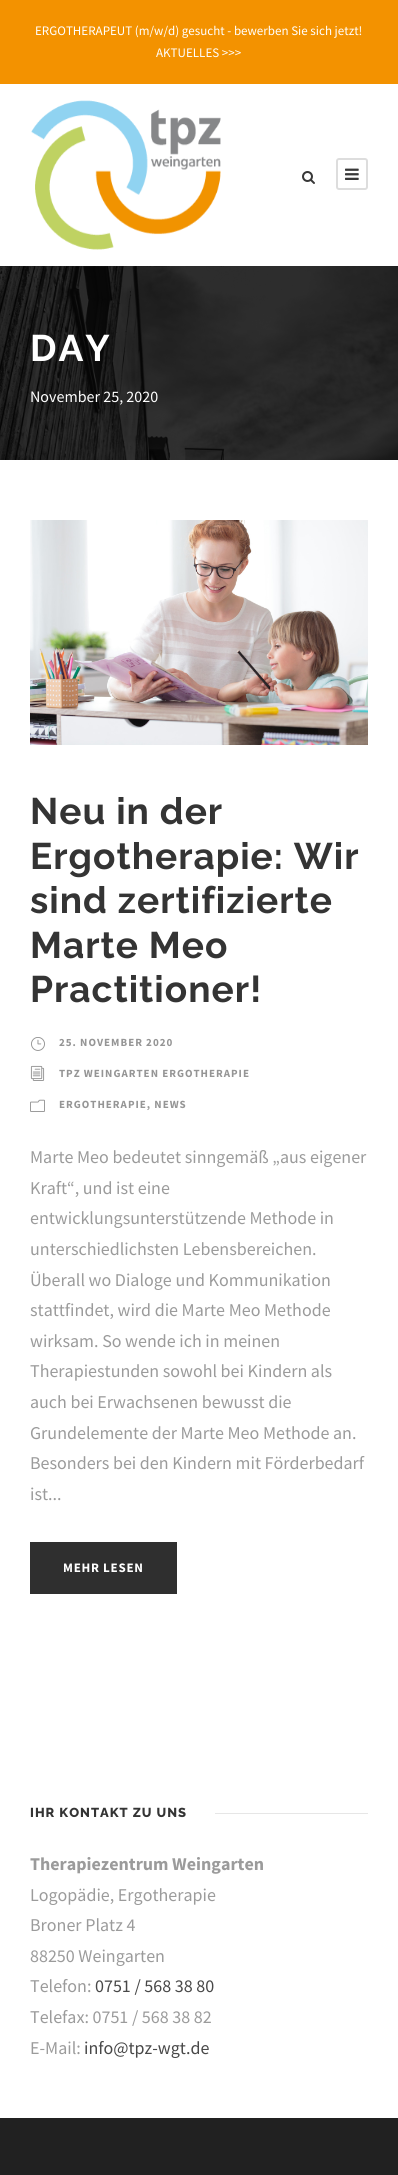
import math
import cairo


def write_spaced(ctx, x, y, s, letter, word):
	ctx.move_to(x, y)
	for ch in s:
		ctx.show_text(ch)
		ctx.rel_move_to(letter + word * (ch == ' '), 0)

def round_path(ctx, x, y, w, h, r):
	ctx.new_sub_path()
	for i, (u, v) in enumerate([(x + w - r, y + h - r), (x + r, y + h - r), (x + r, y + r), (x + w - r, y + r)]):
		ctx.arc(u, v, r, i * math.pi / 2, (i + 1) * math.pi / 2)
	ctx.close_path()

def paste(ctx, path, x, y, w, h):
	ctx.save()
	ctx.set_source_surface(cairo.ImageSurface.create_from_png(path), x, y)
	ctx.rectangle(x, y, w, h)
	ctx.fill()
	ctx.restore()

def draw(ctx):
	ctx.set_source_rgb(1, 1, 1)
	ctx.paint()
	ctx.set_source_rgb(0.953, 0.573, 0)
	ctx.rectangle(0, 0, 398, 84)
	ctx.fill()
	ctx.select_font_face('Source Sans Pro')
	ctx.set_font_size(13)
	ctx.set_source_rgb(1, 1, 1)
	ctx.move_to(35, 35)
	ctx.show_text('ERGOTHERAPEUT (m/w/d) gesucht - bewerben Sie sich jetzt!')
	ctx.move_to(156, 57)
	ctx.show_text('AKTUELLES >>>')
	paste(ctx, 'media/1.png', 31, 100, 190, 150)
	paste(ctx, 'media/2.png', 302, 171, 13, 13)
	round_path(ctx, 337, 159, 30, 30, 2)
	ctx.set_source_rgb(0.867, 0.867, 0.867)
	ctx.stroke()
	paste(ctx, 'media/3.png', 345, 168, 14, 12)
	paste(ctx, 'media/4.png', 0, 266, 398, 194)
	ctx.select_font_face('Raleway Thin')
	ctx.set_font_size(37)
	ctx.set_source_rgb(1, 1, 1)
	write_spaced(ctx, 30, 361, 'DAY', 2, 0)
	ctx.select_font_face('Source Sans Pro')
	ctx.set_font_size(16)
	ctx.move_to(30, 402)
	ctx.show_text('November 25, 2020')
	paste(ctx, 'media/5.png', 30, 520, 338, 225)
	ctx.select_font_face('Raleway Thin')
	ctx.set_font_size(37)
	ctx.set_source_rgb(0.204, 0.204, 0.204)
	for x, y, s in [
		(30, 824, 'Neu in der'),
		(30, 869, 'Ergotherapie: Wir'),
		(30, 913, 'sind zertifizierte'),
		(30, 958, 'Marte Meo'),
		(30, 1002, 'Practitioner!'),
	]:
		write_spaced(ctx, x, y, s, 1, 0)
	paste(ctx, 'media/6.png', 31, 1037, 14, 14)
	ctx.select_font_face('Source Sans Pro', cairo.FONT_SLANT_NORMAL, cairo.FONT_WEIGHT_BOLD)
	ctx.set_font_size(11)
	ctx.set_source_rgb(0.584, 0.584, 0.584)
	write_spaced(ctx, 59, 1046, '25. NOVEMBER 2020', 1, 0)
	paste(ctx, 'media/7.png', 30, 1065, 15, 16)
	write_spaced(ctx, 59, 1077, 'TPZ WEINGARTEN ERGOTHERAPIE', 1, 0)
	paste(ctx, 'media/8.png', 30, 1099, 15, 13)
	write_spaced(ctx, 59, 1108, 'ERGOTHERAPIE, NEWS', 1, 0)
	ctx.select_font_face('Source Sans Pro')
	ctx.set_font_size(18)
	ctx.set_source_rgb(0.608, 0.608, 0.608)
	for x, y, s in [
		(30, 1163, 'Marte Meo bedeutet sinngemäß „aus eigener'),
		(30, 1194, 'Kraft“, und ist eine'),
		(30, 1224, 'entwicklungsunterstützende Methode in'),
		(30, 1255, 'unterschiedlichsten Lebensbereichen.'),
		(30, 1286, 'Überall wo Dialoge und Kommunikation'),
		(30, 1316, 'stattfindet, wird die Marte Meo Methode'),
		(30, 1347, 'wirksam. So wende ich in meinen'),
		(30, 1377, 'Therapiestunden sowohl bei Kindern als'),
		(30, 1408, 'auch bei Erwachsenen bewusst die'),
		(30, 1439, 'Grundelemente der Marte Meo Methode an.'),
		(30, 1469, 'Besonders bei den Kindern mit Förderbedarf'),
		(30, 1500, 'ist...'),
	]:
		ctx.move_to(x, y)
		ctx.show_text(s)
	ctx.set_source_rgb(0.184, 0.184, 0.184)
	ctx.rectangle(30, 1542, 147, 52)
	ctx.fill()
	ctx.select_font_face('Source Sans Pro', cairo.FONT_SLANT_NORMAL, cairo.FONT_WEIGHT_BOLD)
	ctx.set_font_size(13)
	ctx.set_source_rgb(1, 1, 1)
	write_spaced(ctx, 63, 1572, 'MEHR LESEN', 0.75, 0)
	ctx.select_font_face('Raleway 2 Thin')
	ctx.set_source_rgb(0.204, 0.204, 0.204)
	write_spaced(ctx, 30, 1817, 'IHR KONTAKT ZU UNS', 1, 0)
	ctx.set_source_rgb(0.902, 0.902, 0.902)
	ctx.rectangle(215, 1813, 153, 1)
	ctx.fill()
	ctx.select_font_face('Source Sans Pro', cairo.FONT_SLANT_NORMAL, cairo.FONT_WEIGHT_BOLD)
	ctx.set_font_size(18)
	ctx.set_source_rgb(0.608, 0.608, 0.608)
	ctx.move_to(30, 1870)
	ctx.show_text('Therapiezentrum Weingarten')
	ctx.select_font_face('Source Sans Pro')
	for x, y, s in [
		(30, 1901, 'Logopädie, Ergotherapie'),
		(30, 1931, 'Broner Platz 4'),
		(30, 1962, '88250 Weingarten'),
		(30, 1992, 'Telefon:'),
	]:
		ctx.move_to(x, y)
		ctx.show_text(s)
	ctx.set_source_rgb(0.282, 0.282, 0.282)
	ctx.move_to(95, 1992)
	ctx.show_text('0751 / 568 38 80')
	ctx.set_source_rgb(0.608, 0.608, 0.608)
	ctx.move_to(30, 2023)
	ctx.show_text('Telefax: 0751 / 568 38 82')
	ctx.move_to(30, 2054)
	ctx.show_text('E-Mail:')
	ctx.set_source_rgb(0.282, 0.282, 0.282)
	ctx.move_to(84, 2054)
	ctx.show_text('info@tpz-wgt.de')
	ctx.set_source_rgb(0.129, 0.129, 0.129)
	ctx.rectangle(0, 2118, 398, 57)
	ctx.fill()


surface = cairo.ImageSurface(cairo.FORMAT_RGB24, 398, 2175)
ctx = cairo.Context(surface)
options = cairo.FontOptions()
options.set_hint_metrics(cairo.HINT_METRICS_OFF)
options.set_hint_style(cairo.HINT_STYLE_NONE)
ctx.set_font_options(options)
ctx.set_miter_limit(4)
draw(ctx)
surface.write_to_png('image.png')
